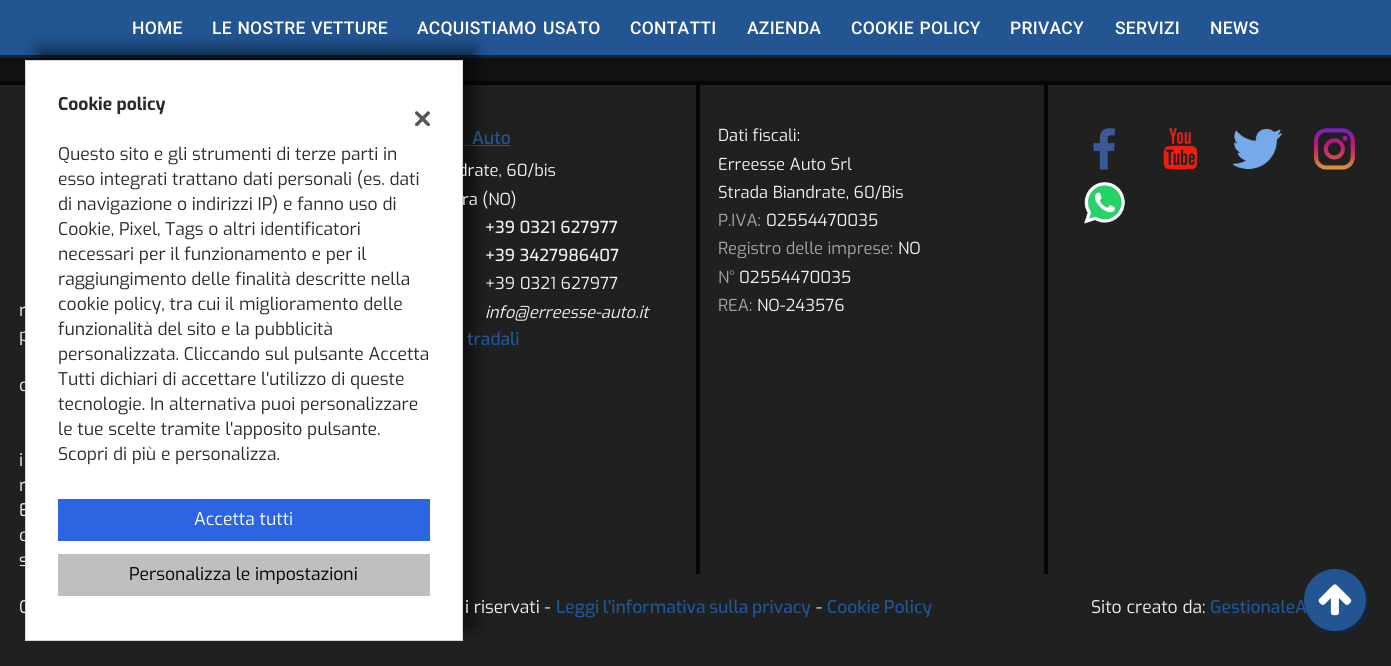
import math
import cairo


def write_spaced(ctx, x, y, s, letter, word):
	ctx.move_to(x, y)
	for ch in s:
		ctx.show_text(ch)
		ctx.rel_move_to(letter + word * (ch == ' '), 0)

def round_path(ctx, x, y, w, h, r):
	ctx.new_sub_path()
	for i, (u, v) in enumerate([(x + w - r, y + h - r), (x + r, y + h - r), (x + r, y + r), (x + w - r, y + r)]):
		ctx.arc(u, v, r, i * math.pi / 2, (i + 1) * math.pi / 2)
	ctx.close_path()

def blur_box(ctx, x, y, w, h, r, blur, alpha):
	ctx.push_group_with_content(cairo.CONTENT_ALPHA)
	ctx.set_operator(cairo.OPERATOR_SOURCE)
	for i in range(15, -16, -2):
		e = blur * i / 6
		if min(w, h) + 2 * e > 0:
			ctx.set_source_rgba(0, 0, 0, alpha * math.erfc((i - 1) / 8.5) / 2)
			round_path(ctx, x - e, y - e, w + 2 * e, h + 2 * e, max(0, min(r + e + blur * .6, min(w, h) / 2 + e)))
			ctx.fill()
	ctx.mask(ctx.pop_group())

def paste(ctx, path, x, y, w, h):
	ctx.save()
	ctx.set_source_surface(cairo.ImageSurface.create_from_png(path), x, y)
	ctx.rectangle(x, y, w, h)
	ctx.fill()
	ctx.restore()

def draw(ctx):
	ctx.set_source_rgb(0.067, 0.067, 0.067)
	ctx.paint()
	ctx.set_source_rgb(0.059, 0.145, 0.251)
	ctx.rectangle(0, 55, 1391, 3)
	ctx.fill()
	ctx.set_source_rgb(0.137, 0.333, 0.573)
	ctx.rectangle(0, 0, 1391, 55)
	ctx.fill()
	ctx.select_font_face('Roboto Medium')
	ctx.set_font_size(17.5)
	ctx.set_source_rgb(1, 1, 1)
	write_spaced(ctx, 132, 34, 'HOME', 0.25, 0)
	write_spaced(ctx, 212, 34, 'LE NOSTRE VETTURE', 0.25, 1)
	write_spaced(ctx, 417, 34, 'ACQUISTIAMO USATO', 0.25, 2)
	write_spaced(ctx, 630, 34, 'CONTATTI', 0.25, 0)
	write_spaced(ctx, 747, 34, 'AZIENDA', 0.25, 0)
	write_spaced(ctx, 851, 34, 'COOKIE POLICY', 0.25, 1)
	for x, y, s in [
		(1010, 34, 'PRIVACY'),
		(1115, 34, 'SERVIZI'),
		(1210, 34, 'NEWS'),
	]:
		write_spaced(ctx, x, y, s, 0.25, 0)
	ctx.set_source_rgb(0.125, 0.125, 0.125)
	ctx.rectangle(0, 85, 1391, 581)
	ctx.fill()
	ctx.set_source_rgb(0.024, 0.024, 0.024)
	ctx.rectangle(0, 81, 1391, 4)
	ctx.fill()
	ctx.set_source_rgb(0.137, 0.333, 0.573)
	ctx.rectangle(463, 145, 47, 1)
	ctx.fill()
	ctx.set_source_rgb(0, 0, 0)
	blur_box(ctx, 38, 48, 437, 581, 0, 7.5, 0.5)
	ctx.select_font_face('Exo')
	ctx.set_font_size(16.6)
	ctx.set_source_rgb(0.941, 0.941, 0.941)
	ctx.move_to(458, 176)
	ctx.show_text('drate, 60/bis')
	ctx.set_font_size(17.5)
	for x, y, s in [
		(19, 316, 'r'),
		(19, 341, 'p'),
		(19, 391, 'c'),
		(19, 491, 'r'),
		(19, 516, 'E'),
		(19, 541, 'c'),
		(19, 566, 's'),
		(19, 613, 'C'),
	]:
		ctx.move_to(x, y)
		ctx.show_text(s)
	ctx.set_source_rgb(1, 1, 1)
	ctx.rectangle(25.5, 60.5, 437, 580)
	ctx.fill_preserve()
	ctx.set_source_rgb(0.839, 0.839, 0.839)
	ctx.set_line_width(1)
	ctx.stroke()
	ctx.select_font_face('Exo', cairo.FONT_SLANT_NORMAL, cairo.FONT_WEIGHT_BOLD)
	ctx.set_source_rgb(0.169, 0.161, 0.161)
	ctx.move_to(58, 110)
	ctx.show_text('Cookie policy')
	ctx.select_font_face('Exo')
	for x, y, s in [
		(58, 160, 'Questo sito e gli strumenti di terze parti in'),
		(58, 185, 'esso integrati trattano dati personali (es. dati'),
		(58, 210, 'di navigazione o indirizzi IP) e fanno uso di'),
		(58, 235, 'Cookie, Pixel, Tags o altri identificatori'),
		(58, 260, 'necessari per il funzionamento e per il'),
		(58, 285, 'raggiungimento delle finalità descritte nella'),
		(58, 310, 'cookie policy, tra cui il miglioramento delle'),
		(58, 335, 'funzionalità del sito e la pubblicità'),
		(58, 360, 'personalizzata. Cliccando sul pulsante Accetta'),
		(58, 385, 'Tutti dichiari di accettare l\'utilizzo di queste'),
		(58, 410, 'tecnologie. In alternativa puoi personalizzare'),
		(58, 435, 'le tue scelte tramite l\'apposito pulsante.'),
		(58, 460, 'Scopri di più e personalizza.'),
	]:
		ctx.move_to(x, y)
		ctx.show_text(s)
	paste(ctx, 'media/1.png', 415, 111, 15, 15)
	ctx.set_source_rgb(0.173, 0.396, 0.882)
	ctx.rectangle(58, 499, 372, 42)
	ctx.fill()
	ctx.set_source_rgb(1, 1, 1)
	ctx.move_to(194, 525)
	ctx.show_text('Accetta tutti')
	ctx.set_source_rgb(0.749, 0.749, 0.749)
	ctx.rectangle(58, 554, 372, 42)
	ctx.fill()
	ctx.set_source_rgb(0, 0, 0)
	ctx.move_to(129, 580)
	ctx.show_text('Personalizza le impostazioni')
	ctx.select_font_face('Exo Medium')
	ctx.set_source_rgb(0.137, 0.333, 0.573)
	ctx.move_to(472, 144)
	ctx.show_text('Auto')
	ctx.select_font_face('Exo')
	ctx.set_font_size(16.6)
	ctx.set_source_rgb(0.941, 0.941, 0.941)
	ctx.move_to(462, 205)
	ctx.show_text('ra (NO)')
	ctx.select_font_face('Exo Medium')
	ctx.move_to(485, 233)
	ctx.show_text('+39 0321 627977')
	ctx.move_to(485, 261)
	ctx.show_text('+39 3427986407')
	ctx.select_font_face('Exo')
	ctx.move_to(485, 289)
	ctx.show_text('+39 0321 627977')
	ctx.select_font_face('Exo', cairo.FONT_SLANT_ITALIC)
	ctx.move_to(485, 318)
	ctx.show_text('info@erreesse-auto.it')
	ctx.select_font_face('Exo Medium')
	ctx.set_font_size(17.5)
	ctx.set_source_rgb(0.137, 0.333, 0.573)
	write_spaced(ctx, 467, 345, 'tradali', 0, -1)
	ctx.set_source_rgb(0.024, 0.024, 0.024)
	ctx.rectangle(696, 85, 4, 489)
	ctx.fill()
	ctx.select_font_face('Exo')
	ctx.set_font_size(16.6)
	ctx.set_source_rgb(0.941, 0.941, 0.941)
	for x, y, s in [
		(718, 141, 'Dati fiscali:'),
		(718, 170, 'Erreesse Auto Srl'),
		(718, 198, 'Strada Biandrate, 60/Bis'),
	]:
		ctx.move_to(x, y)
		ctx.show_text(s)
	ctx.set_source_rgb(0.639, 0.639, 0.639)
	ctx.move_to(718, 226)
	ctx.show_text('P.IVA:')
	ctx.set_source_rgb(0.941, 0.941, 0.941)
	ctx.move_to(766, 226)
	ctx.show_text('02554470035')
	ctx.set_source_rgb(0.639, 0.639, 0.639)
	ctx.move_to(718, 254)
	ctx.show_text('Registro delle imprese:')
	ctx.set_source_rgb(0.941, 0.941, 0.941)
	ctx.move_to(898, 254)
	ctx.show_text('NO')
	ctx.set_source_rgb(0.639, 0.639, 0.639)
	ctx.move_to(718, 283)
	ctx.show_text('N°')
	ctx.set_source_rgb(0.941, 0.941, 0.941)
	ctx.move_to(739, 283)
	ctx.show_text('02554470035')
	ctx.set_source_rgb(0.639, 0.639, 0.639)
	ctx.move_to(718, 311)
	ctx.show_text('REA:')
	ctx.set_source_rgb(0.941, 0.941, 0.941)
	ctx.move_to(757, 311)
	ctx.show_text('NO-243576')
	ctx.set_source_rgb(0.024, 0.024, 0.024)
	ctx.rectangle(1044, 85, 4, 489)
	ctx.fill()
	paste(ctx, 'media/2.png', 1093, 128, 22, 42)
	paste(ctx, 'media/3.png', 1163, 128, 35, 42)
	paste(ctx, 'media/4.png', 1233, 128, 49, 42)
	paste(ctx, 'media/5.png', 1314, 128, 41, 42)
	paste(ctx, 'media/6.png', 1084, 182, 41, 42)
	ctx.set_font_size(17.5)
	ctx.set_source_rgb(0.941, 0.941, 0.941)
	ctx.move_to(19, 466)
	ctx.show_text('i')
	ctx.move_to(465, 613)
	ctx.show_text('i riservati -')
	ctx.select_font_face('Exo Medium')
	ctx.set_source_rgb(0.137, 0.333, 0.573)
	write_spaced(ctx, 556, 613, 'Leggi l\'informativa sulla privacy', 0, -1)
	ctx.select_font_face('Exo')
	ctx.set_source_rgb(0.941, 0.941, 0.941)
	ctx.move_to(816, 613)
	ctx.show_text('-')
	ctx.select_font_face('Exo Medium')
	ctx.set_source_rgb(0.137, 0.333, 0.573)
	write_spaced(ctx, 827, 613, 'Cookie Policy', 0, -1)
	ctx.select_font_face('Exo')
	ctx.set_source_rgb(0.941, 0.941, 0.941)
	ctx.move_to(1091, 613)
	ctx.show_text('Sito creato da:')
	ctx.select_font_face('Exo Medium')
	ctx.set_source_rgb(0.137, 0.333, 0.573)
	ctx.move_to(1210, 613)
	ctx.show_text('GestionaleA')
	ctx.set_source_rgb(0.059, 0.145, 0.251)
	ctx.new_path()
	ctx.move_to(1313, 622)
	ctx.curve_to(1324, 636, 1346, 638, 1360, 625)
	ctx.curve_to(1373, 611, 1371, 589, 1357, 578)
	ctx.curve_to(1369, 590, 1369, 610, 1357, 622)
	ctx.curve_to(1345, 634, 1325, 634, 1313, 622)
	ctx.close_path()
	ctx.fill()
	ctx.set_source_rgb(0.137, 0.333, 0.573)
	ctx.arc(1335, 600, 31, 0, 2 * math.pi)
	ctx.fill()
	paste(ctx, 'media/7.png', 1318, 584, 34, 32)


surface = cairo.ImageSurface(cairo.FORMAT_RGB24, 1391, 666)
ctx = cairo.Context(surface)
options = cairo.FontOptions()
options.set_hint_metrics(cairo.HINT_METRICS_OFF)
options.set_hint_style(cairo.HINT_STYLE_NONE)
ctx.set_font_options(options)
ctx.set_miter_limit(4)
draw(ctx)
surface.write_to_png('image.png')
